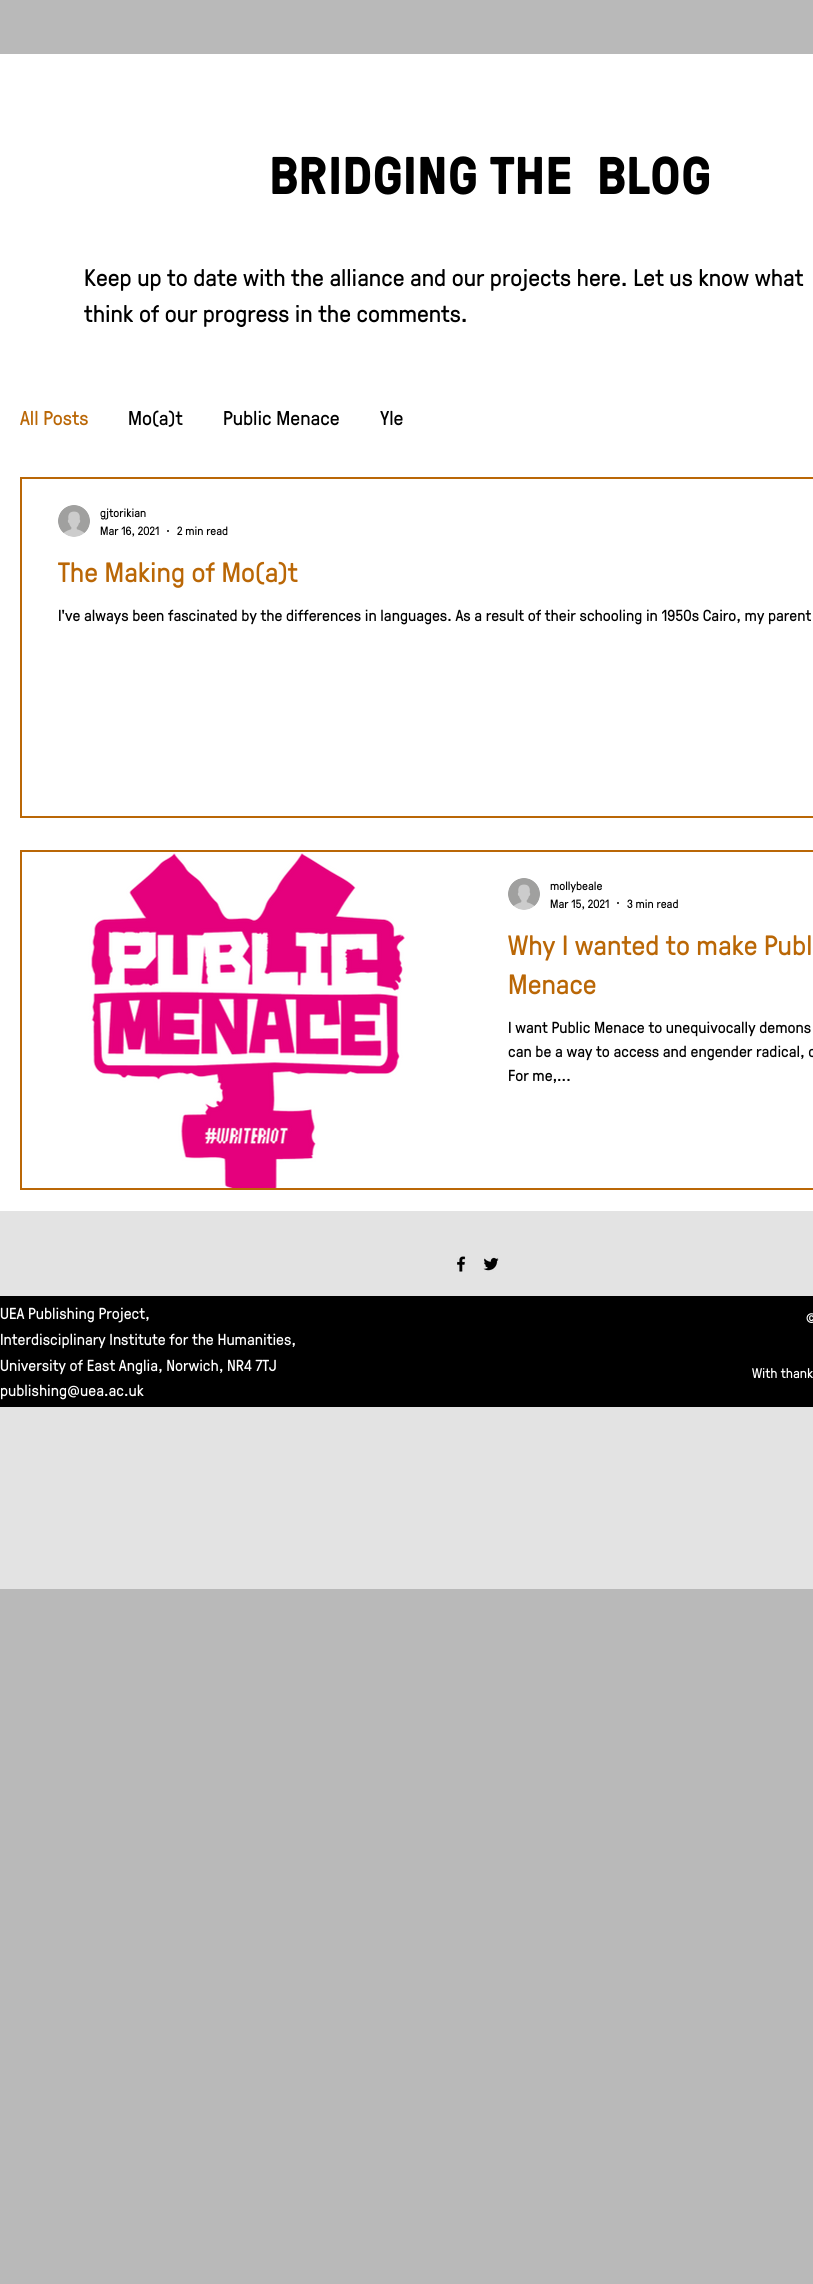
import math
import cairo


def paste(ctx, path, x, y, w, h):
	ctx.save()
	ctx.set_source_surface(cairo.ImageSurface.create_from_png(path), x, y)
	ctx.rectangle(x, y, w, h)
	ctx.fill()
	ctx.restore()

def draw(ctx):
	ctx.set_source_rgb(0.725, 0.725, 0.725)
	ctx.paint()
	ctx.set_source_rgb(1, 1, 1)
	ctx.rectangle(0, 54, 813, 1157)
	ctx.fill()
	ctx.select_font_face('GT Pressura', cairo.FONT_SLANT_NORMAL, cairo.FONT_WEIGHT_BOLD)
	ctx.set_font_size(53)
	ctx.set_source_rgb(0, 0, 0)
	ctx.move_to(269, 194)
	ctx.show_text('BRIDGING THE  BLOG')
	ctx.select_font_face('GT Pressura')
	ctx.set_font_size(24)
	ctx.move_to(84, 286)
	ctx.show_text('Keep up to date with the alliance and our projects here. Let us know what')
	ctx.move_to(84, 322)
	ctx.show_text('think of our progress in the comments.')
	ctx.select_font_face('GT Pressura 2')
	ctx.set_font_size(20)
	ctx.set_source_rgb(0.729, 0.404, 0.027)
	ctx.move_to(20, 425)
	ctx.show_text('All Posts')
	ctx.set_source_rgb(0, 0, 0)
	for x, y, s in [
		(128, 425, 'Mo(a)t'),
		(223, 425, 'Public Menace'),
		(380, 425, 'Yle'),
	]:
		ctx.move_to(x, y)
		ctx.show_text(s)
	ctx.rectangle(21, 478, 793, 339)
	ctx.set_source_rgb(0.729, 0.404, 0.027)
	ctx.stroke()
	paste(ctx, 'media/1.png', 58, 505, 32, 32)
	ctx.select_font_face('GT Pressura')
	ctx.set_font_size(12)
	ctx.set_source_rgb(0, 0, 0)
	ctx.move_to(100, 517)
	ctx.show_text('gjtorikian')
	ctx.move_to(100, 535)
	ctx.show_text('Mar 16, 2021')
	ctx.new_path()
	ctx.arc(168, 531, 1, 0, 2 * math.pi)
	ctx.fill()
	ctx.move_to(177, 535)
	ctx.show_text('2 min read')
	ctx.set_font_size(28)
	ctx.set_source_rgb(0.729, 0.404, 0.027)
	ctx.move_to(58, 582)
	ctx.show_text('The Making of Mo(a)t')
	ctx.set_font_size(16)
	ctx.set_source_rgb(0, 0, 0)
	ctx.move_to(58, 621)
	ctx.show_text('I\'ve always been fascinated by the differences in languages. As a result of their schooling in 1950s Cairo, my parent')
	ctx.rectangle(21, 851, 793, 338)
	ctx.set_source_rgb(0.729, 0.404, 0.027)
	ctx.stroke()
	paste(ctx, 'media/2.png', 29, 852, 435, 336)
	paste(ctx, 'media/1.png', 508, 878, 32, 32)
	ctx.set_font_size(12)
	ctx.set_source_rgb(0, 0, 0)
	ctx.move_to(550, 890)
	ctx.show_text('mollybeale')
	ctx.move_to(550, 908)
	ctx.show_text('Mar 15, 2021')
	ctx.new_path()
	ctx.arc(618, 903, 1, 0, 2 * math.pi)
	ctx.fill()
	ctx.move_to(627, 908)
	ctx.show_text('3 min read')
	ctx.set_font_size(28)
	ctx.set_source_rgb(0.729, 0.404, 0.027)
	ctx.move_to(508, 955)
	ctx.show_text('Why I wanted to make Publ')
	ctx.move_to(508, 994)
	ctx.show_text('Menace')
	ctx.set_font_size(16)
	ctx.set_source_rgb(0, 0, 0)
	for x, y, s in [
		(508, 1033, 'I want Public Menace to unequivocally demons'),
		(508, 1057, 'can be a way to access and engender radical, c'),
		(508, 1081, 'For me,...'),
	]:
		ctx.move_to(x, y)
		ctx.show_text(s)
	ctx.set_source_rgb(0.89, 0.89, 0.89)
	ctx.rectangle(0, 1211, 813, 378)
	ctx.fill()
	paste(ctx, 'media/3.png', 457, 1256, 9, 16)
	paste(ctx, 'media/4.png', 483, 1257, 16, 14)
	ctx.set_source_rgb(0, 0, 0)
	ctx.rectangle(0, 1296, 813, 111)
	ctx.fill()
	ctx.select_font_face('GT Pressura 2')
	ctx.set_source_rgb(1, 1, 1)
	for x, y, s in [
		(0, 1319, 'UEA Publishing Project,'),
		(0, 1345, 'Interdisciplinary Institute for the Humanities,'),
		(0, 1371, 'University of East Anglia, Norwich, NR4 7TJ'),
		(0, 1396, 'publishing@uea.ac.uk'),
	]:
		ctx.move_to(x, y)
		ctx.show_text(s)
	ctx.set_font_size(14)
	ctx.move_to(806, 1323)
	ctx.show_text('©')
	ctx.move_to(752, 1378)
	ctx.show_text('With thank')


surface = cairo.ImageSurface(cairo.FORMAT_RGB24, 813, 2284)
ctx = cairo.Context(surface)
options = cairo.FontOptions()
options.set_hint_metrics(cairo.HINT_METRICS_OFF)
options.set_hint_style(cairo.HINT_STYLE_NONE)
ctx.set_font_options(options)
ctx.set_miter_limit(4)
draw(ctx)
surface.write_to_png('image.png')
